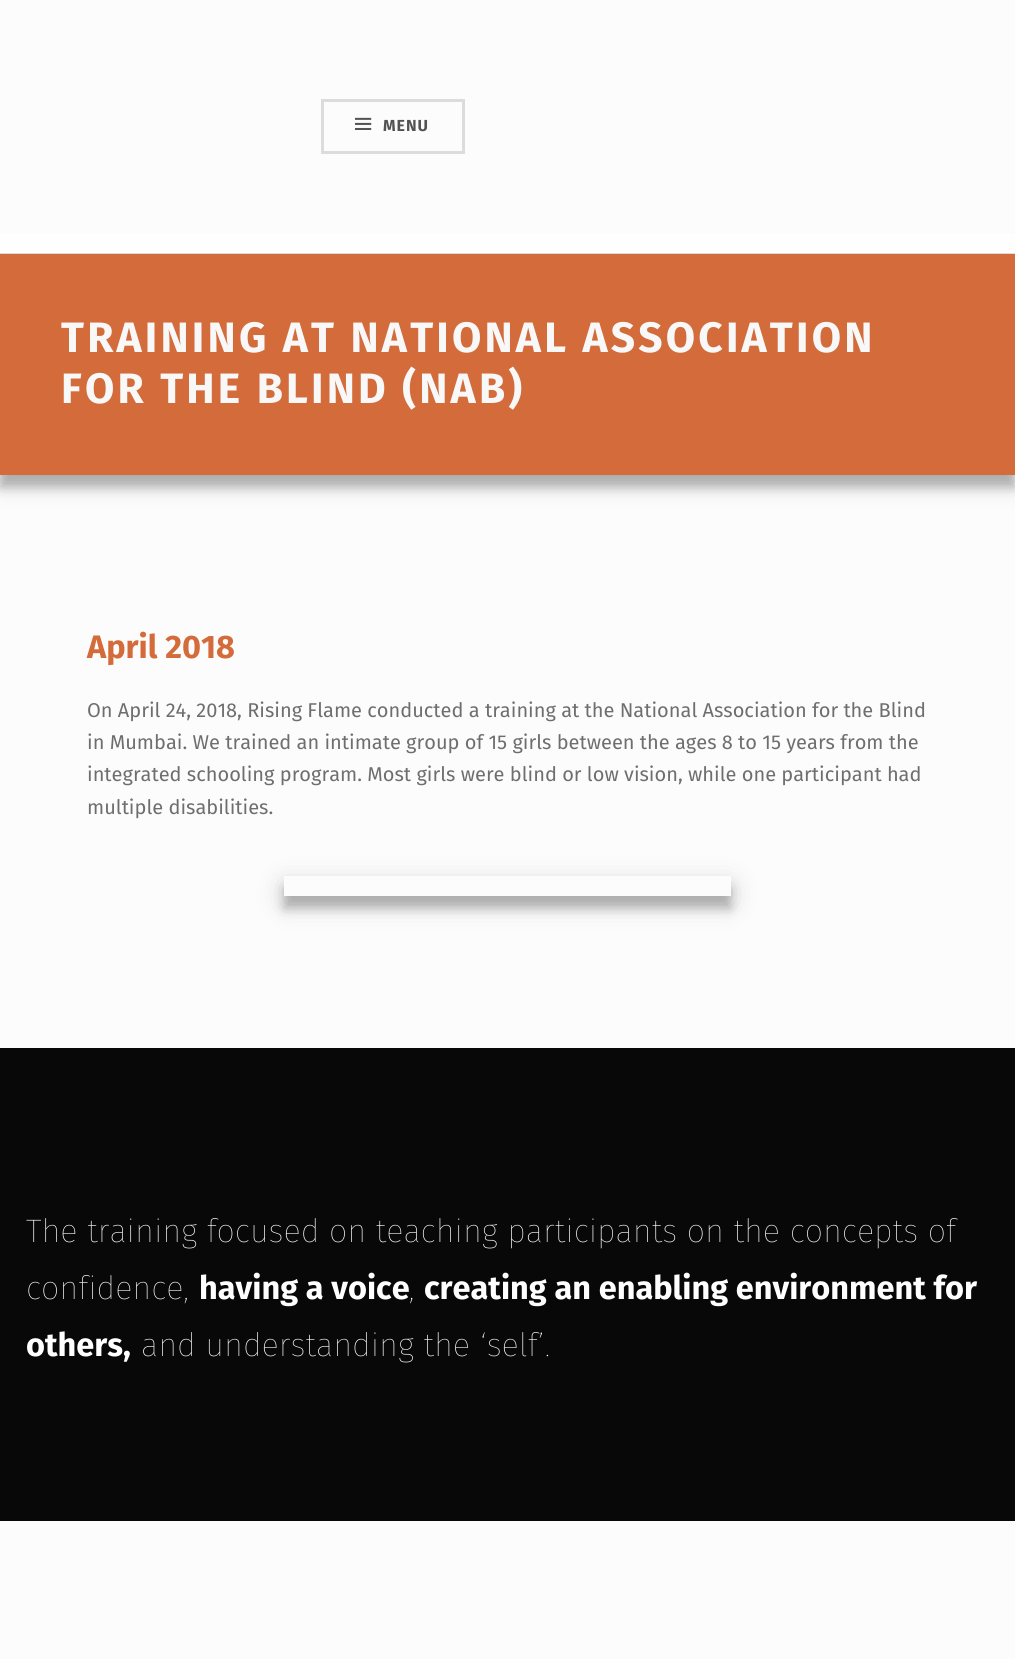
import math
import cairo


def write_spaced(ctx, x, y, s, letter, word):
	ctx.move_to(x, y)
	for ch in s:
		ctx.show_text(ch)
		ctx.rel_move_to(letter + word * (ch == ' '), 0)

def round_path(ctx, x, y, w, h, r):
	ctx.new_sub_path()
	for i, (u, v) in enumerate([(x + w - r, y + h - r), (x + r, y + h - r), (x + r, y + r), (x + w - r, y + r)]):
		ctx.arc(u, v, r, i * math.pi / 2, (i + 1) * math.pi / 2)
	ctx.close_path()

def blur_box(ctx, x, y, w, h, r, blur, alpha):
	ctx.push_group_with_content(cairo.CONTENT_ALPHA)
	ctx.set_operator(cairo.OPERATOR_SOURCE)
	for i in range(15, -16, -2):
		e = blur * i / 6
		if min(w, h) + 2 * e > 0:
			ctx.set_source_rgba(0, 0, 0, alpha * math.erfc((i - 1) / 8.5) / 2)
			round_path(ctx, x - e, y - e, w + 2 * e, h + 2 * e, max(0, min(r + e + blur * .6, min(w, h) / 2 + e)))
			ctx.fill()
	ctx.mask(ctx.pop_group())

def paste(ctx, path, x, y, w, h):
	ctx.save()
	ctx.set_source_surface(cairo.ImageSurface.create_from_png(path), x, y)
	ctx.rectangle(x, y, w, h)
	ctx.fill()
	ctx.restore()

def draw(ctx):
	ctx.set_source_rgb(0.992, 0.988, 0.988)
	ctx.paint()
	ctx.set_source_rgb(0, 0, 0)
	blur_box(ctx, 0, 261, 1015, 222, 0, 12.5, 0.19)
	blur_box(ctx, 0, 266, 1015, 222, 0, 5, 0.2)
	ctx.set_source_rgb(1, 0.996, 0.996)
	ctx.rectangle(0, 233, 1015, 20)
	ctx.fill()
	ctx.set_source_rgb(0.867, 0.863, 0.863)
	ctx.rectangle(0, 253, 1015, 1)
	ctx.fill()
	ctx.rectangle(322.5, 100.5, 141, 52)
	ctx.set_line_width(3)
	ctx.stroke()
	paste(ctx, 'media/1.png', 355, 117, 17, 13)
	ctx.select_font_face('Fira Sans', cairo.FONT_SLANT_NORMAL, cairo.FONT_WEIGHT_BOLD)
	ctx.set_font_size(16)
	ctx.set_source_rgb(0.329, 0.325, 0.325)
	write_spaced(ctx, 383, 131, 'MENU', 1, 0)
	ctx.set_source_rgb(0.827, 0.42, 0.231)
	ctx.rectangle(0, 254, 1015, 221)
	ctx.fill()
	ctx.set_font_size(42.5)
	ctx.set_source_rgb(0.969, 0.969, 0.969)
	write_spaced(ctx, 61, 352, 'TRAINING AT NATIONAL ASSOCIATION', 3.2, 0)
	write_spaced(ctx, 61, 403, 'FOR THE BLIND (NAB)', 3.2, 0)
	ctx.set_font_size(32.5)
	ctx.set_source_rgb(0.827, 0.42, 0.231)
	ctx.move_to(87, 658)
	ctx.show_text('April 2018')
	ctx.select_font_face('Fira Sans')
	ctx.set_font_size(20)
	ctx.set_source_rgb(0.435, 0.431, 0.431)
	for x, y, s in [
		(87, 717, 'On April 24, 2018, Rising Flame conducted a training at the National Association for the Blind'),
		(87, 749, 'in Mumbai. We trained an intimate group of 15 girls between the ages 8 to 15 years from the'),
		(87, 781, 'integrated schooling program. Most girls were blind or low vision, while one participant had'),
		(87, 814, 'multiple disabilities.'),
	]:
		ctx.move_to(x, y)
		ctx.show_text(s)
	ctx.save()
	ctx.set_fill_rule(cairo.FILL_RULE_EVEN_ODD)
	ctx.new_path()
	ctx.move_to(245, 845)
	ctx.line_to(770, 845)
	ctx.line_to(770, 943)
	ctx.line_to(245, 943)
	ctx.close_path()
	ctx.move_to(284, 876)
	ctx.line_to(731, 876)
	ctx.line_to(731, 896)
	ctx.line_to(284, 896)
	ctx.close_path()
	ctx.clip()
	ctx.set_source_rgb(0, 0, 0)
	blur_box(ctx, 284, 884, 447, 20, 0, 12.5, 0.19)
	ctx.restore()
	ctx.save()
	ctx.set_fill_rule(cairo.FILL_RULE_EVEN_ODD)
	ctx.new_path()
	ctx.move_to(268, 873)
	ctx.line_to(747, 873)
	ctx.line_to(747, 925)
	ctx.line_to(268, 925)
	ctx.close_path()
	ctx.move_to(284, 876)
	ctx.line_to(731, 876)
	ctx.line_to(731, 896)
	ctx.line_to(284, 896)
	ctx.close_path()
	ctx.clip()
	ctx.set_source_rgb(0, 0, 0)
	blur_box(ctx, 284, 889, 447, 20, 0, 5, 0.2)
	ctx.restore()
	ctx.set_source_rgb(0.035, 0.035, 0.035)
	ctx.rectangle(0, 1048, 1015, 473)
	ctx.fill()
	ctx.select_font_face('Fira Sans Thin')
	ctx.set_font_size(32.5)
	ctx.set_source_rgb(1, 1, 1)
	ctx.move_to(26, 1242)
	ctx.show_text('The training focused on teaching participants on the concepts of')
	ctx.move_to(26, 1299)
	ctx.show_text('confidence,')
	ctx.select_font_face('Fira Sans', cairo.FONT_SLANT_NORMAL, cairo.FONT_WEIGHT_BOLD)
	ctx.move_to(199, 1299)
	ctx.show_text('having a voice')
	ctx.select_font_face('Fira Sans Thin')
	ctx.move_to(409, 1299)
	ctx.show_text(',')
	ctx.select_font_face('Fira Sans', cairo.FONT_SLANT_NORMAL, cairo.FONT_WEIGHT_BOLD)
	ctx.move_to(424, 1299)
	ctx.show_text('creating an enabling environment for')
	ctx.move_to(26, 1356)
	ctx.show_text('others,')
	ctx.select_font_face('Fira Sans Thin')
	ctx.move_to(141, 1356)
	ctx.show_text('and understanding the ‘self’.')


surface = cairo.ImageSurface(cairo.FORMAT_RGB24, 1015, 1659)
ctx = cairo.Context(surface)
options = cairo.FontOptions()
options.set_hint_metrics(cairo.HINT_METRICS_OFF)
options.set_hint_style(cairo.HINT_STYLE_NONE)
ctx.set_font_options(options)
ctx.set_miter_limit(4)
draw(ctx)
surface.write_to_png('image.png')
